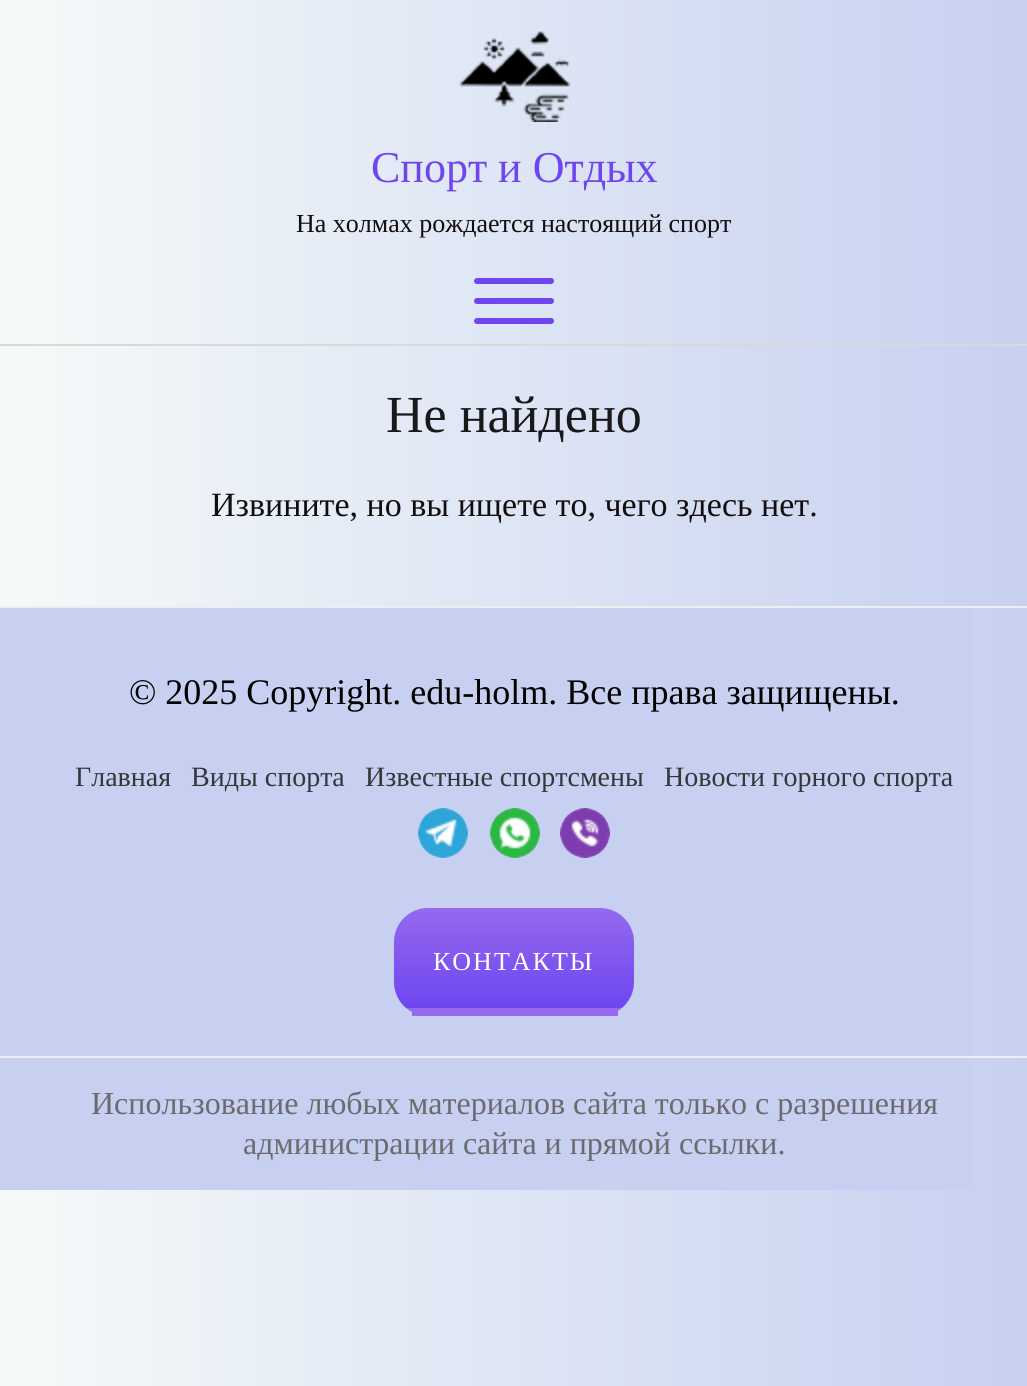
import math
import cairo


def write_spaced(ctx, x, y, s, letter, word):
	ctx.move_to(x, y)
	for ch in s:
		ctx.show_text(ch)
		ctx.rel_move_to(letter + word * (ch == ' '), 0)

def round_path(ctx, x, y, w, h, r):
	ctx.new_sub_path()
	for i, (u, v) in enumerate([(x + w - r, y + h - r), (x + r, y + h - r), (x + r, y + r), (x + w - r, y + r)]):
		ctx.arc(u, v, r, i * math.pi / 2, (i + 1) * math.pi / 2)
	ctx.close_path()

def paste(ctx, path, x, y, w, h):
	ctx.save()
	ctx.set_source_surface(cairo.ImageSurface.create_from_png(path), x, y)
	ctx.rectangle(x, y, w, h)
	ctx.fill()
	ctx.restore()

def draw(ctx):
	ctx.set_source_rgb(1, 1, 1)
	ctx.paint()
	gradient = cairo.LinearGradient(0, 595, 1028, 595)
	gradient.add_color_stop_rgba(0, 0.961, 0.98, 0.976, 1)
	gradient.add_color_stop_rgba(1, 0.78, 0.816, 0.941, 1)
	ctx.set_source(gradient)
	ctx.rectangle(0, 0, 1027, 1386)
	ctx.fill()
	ctx.set_source_rgb(0.859, 0.847, 0.847)
	ctx.rectangle(0, 344, 1027, 2)
	ctx.fill()
	paste(ctx, 'media/1.png', 459, 31, 112, 91)
	ctx.select_font_face('Liberation Serif')
	ctx.set_font_size(44)
	ctx.set_source_rgb(0.431, 0.275, 0.941)
	ctx.move_to(371, 182)
	ctx.show_text('Спорт и Отдых')
	ctx.set_font_size(26)
	ctx.set_source_rgb(0.078, 0.055, 0.055)
	ctx.move_to(296, 232)
	ctx.show_text('На холмах рождается настоящий спорт')
	ctx.set_source_rgb(0.431, 0.275, 0.941)
	round_path(ctx, 474, 278, 80, 6, 3)
	ctx.fill()
	round_path(ctx, 474, 298, 80, 6, 3)
	ctx.fill()
	round_path(ctx, 474, 318, 80, 6, 3)
	ctx.fill()
	ctx.set_font_size(52)
	ctx.set_source_rgb(0.098, 0.094, 0.102)
	ctx.move_to(386, 432)
	ctx.show_text('Не найдено')
	ctx.set_font_size(34)
	ctx.set_source_rgb(0.078, 0.055, 0.055)
	ctx.move_to(211, 516)
	ctx.show_text('Извините, но вы ищете то, чего здесь нет.')
	ctx.set_source_rgb(0.78, 0.816, 0.941)
	ctx.rectangle(0, 608, 972, 582)
	ctx.fill()
	ctx.set_source_rgb(0.933, 0.933, 0.945)
	ctx.rectangle(0, 606, 1027, 2)
	ctx.fill()
	ctx.set_font_size(36)
	ctx.set_source_rgb(0, 0, 0)
	ctx.move_to(129, 704)
	ctx.show_text('© 2025 Copyright. edu-holm. Все права защищены.')
	ctx.set_font_size(28)
	ctx.set_source_rgb(0.204, 0.212, 0.227)
	for x, y, s in [
		(75, 786, 'Главная'),
		(191, 786, 'Виды спорта'),
		(365, 786, 'Известные спортсмены'),
		(664, 786, 'Новости горного спорта'),
	]:
		ctx.move_to(x, y)
		ctx.show_text(s)
	paste(ctx, 'media/2.png', 418, 808, 50, 50)
	paste(ctx, 'media/3.png', 490, 808, 50, 50)
	paste(ctx, 'media/4.png', 560, 808, 50, 50)
	ctx.save()
	round_path(ctx, 394, 908, 240, 108, 34)
	ctx.clip()
	gradient = cairo.LinearGradient(514, 1008, 514, 908)
	gradient.add_color_stop_rgba(0, 0.431, 0.275, 0.941, 1)
	gradient.add_color_stop_rgba(1, 0.584, 0.412, 0.937, 1)
	ctx.set_source(gradient)
	ctx.new_path()
	ctx.move_to(428, 908)
	ctx.line_to(600, 908)
	ctx.curve_to(619, 908, 634, 923, 634, 942)
	ctx.line_to(634, 1008)
	ctx.line_to(394, 1008)
	ctx.line_to(394, 942)
	ctx.curve_to(394, 923, 409, 908, 428, 908)
	ctx.close_path()
	ctx.fill()
	gradient = cairo.LinearGradient(514, 1108, 514, 1008)
	gradient.add_color_stop_rgba(0, 0.431, 0.275, 0.941, 1)
	gradient.add_color_stop_rgba(1, 0.584, 0.412, 0.937, 1)
	ctx.set_source(gradient)
	ctx.rectangle(406, 1008, 216, 4)
	ctx.fill()
	ctx.restore()
	ctx.set_source_rgb(0.584, 0.412, 0.937)
	ctx.rectangle(412, 1010, 206, 6)
	ctx.fill()
	ctx.set_font_size(26)
	ctx.set_source_rgb(1, 1, 1)
	write_spaced(ctx, 433, 970, 'КОНТАКТЫ', 2, 0)
	ctx.set_source_rgb(0.933, 0.933, 0.945)
	ctx.rectangle(0, 1056, 1027, 2)
	ctx.fill()
	ctx.set_font_size(32)
	ctx.set_source_rgb(0.42, 0.416, 0.431)
	ctx.move_to(91, 1114)
	ctx.show_text('Использование любых материалов сайта только с разрешения')
	ctx.move_to(243, 1154)
	ctx.show_text('администрации сайта и прямой ссылки.')


surface = cairo.ImageSurface(cairo.FORMAT_RGB24, 1027, 1386)
ctx = cairo.Context(surface)
options = cairo.FontOptions()
options.set_hint_metrics(cairo.HINT_METRICS_OFF)
options.set_hint_style(cairo.HINT_STYLE_NONE)
ctx.set_font_options(options)
ctx.set_miter_limit(4)
draw(ctx)
surface.write_to_png('image.png')
